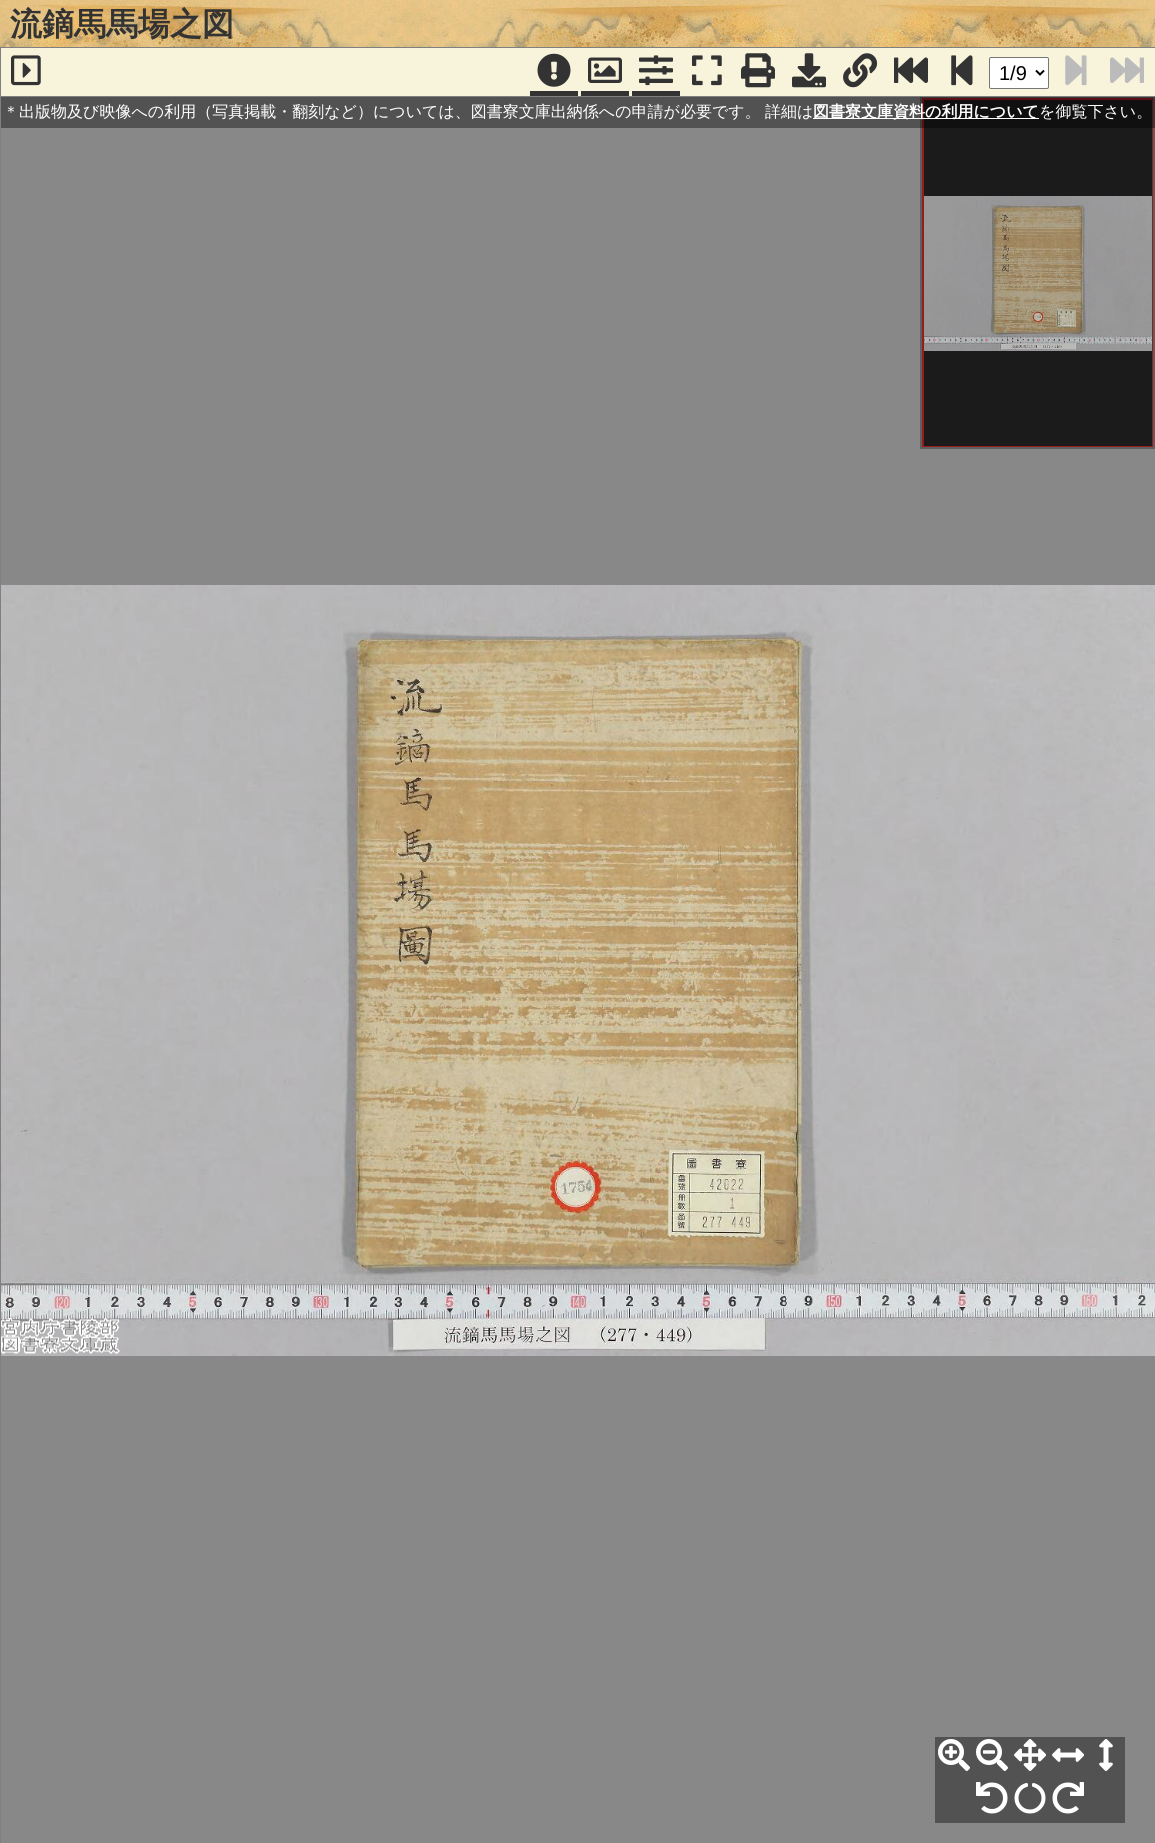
import math
import cairo


def round_path(ctx, x, y, w, h, r):
	ctx.new_sub_path()
	for i, (u, v) in enumerate([(x + w - r, y + h - r), (x + r, y + h - r), (x + r, y + r), (x + w - r, y + r)]):
		ctx.arc(u, v, r, i * math.pi / 2, (i + 1) * math.pi / 2)
	ctx.close_path()

def paste(ctx, path, x, y, w, h):
	ctx.save()
	ctx.set_source_surface(cairo.ImageSurface.create_from_png(path), x, y)
	ctx.rectangle(x, y, w, h)
	ctx.fill()
	ctx.restore()

def draw(ctx):
	ctx.set_source_rgb(1, 1, 1)
	ctx.paint()
	paste(ctx, 'media/1.png', 0, 0, 1155, 47)
	ctx.set_source_rgb(0.502, 0.502, 0.502)
	ctx.rectangle(0, 47, 1155, 1)
	ctx.fill()
	ctx.select_font_face('WenQuanYi Zen Hei', cairo.FONT_SLANT_NORMAL, cairo.FONT_WEIGHT_BOLD)
	ctx.set_font_size(32)
	ctx.set_source_rgb(0.2, 0.2, 0.2)
	ctx.move_to(10, 35)
	ctx.show_text('流鏑馬馬場之図')
	ctx.set_source_rgb(0.533, 0.533, 0.533)
	ctx.rectangle(1, 97, 1154, 1746)
	ctx.fill()
	ctx.set_source_rgb(0.106, 0.106, 0.106)
	ctx.rectangle(924, 100, 228, 346)
	ctx.fill()
	ctx.rectangle(921, 97, 233, 351)
	ctx.set_source_rgb(0.373, 0.373, 0.373)
	ctx.stroke()
	ctx.set_source_rgb(0.502, 0.502, 0.502)
	ctx.rectangle(0, 96, 1155, 1)
	ctx.rectangle(0, 48, 1, 1795)
	ctx.fill()
	ctx.set_source_rgb(0.969, 0.953, 0.859)
	ctx.rectangle(1, 48, 1154, 48)
	ctx.fill()
	paste(ctx, 'media/2.png', 11, 55, 30, 31)
	ctx.set_source_rgb(0.2, 0.2, 0.2)
	ctx.rectangle(530, 91, 48, 5)
	ctx.fill()
	paste(ctx, 'media/3.png', 537, 53, 34, 34)
	ctx.rectangle(581, 91, 48, 5)
	ctx.fill()
	paste(ctx, 'media/4.png', 588, 57, 34, 26)
	ctx.rectangle(632, 91, 48, 5)
	ctx.fill()
	paste(ctx, 'media/5.png', 639, 55, 34, 31)
	paste(ctx, 'media/6.png', 692, 55, 30, 31)
	paste(ctx, 'media/7.png', 741, 53, 34, 35)
	paste(ctx, 'media/8.png', 792, 53, 34, 35)
	paste(ctx, 'media/9.png', 843, 53, 35, 35)
	paste(ctx, 'media/10.png', 894, 57, 34, 26)
	paste(ctx, 'media/11.png', 951, 55, 22, 31)
	ctx.set_source_rgb(1, 1, 1)
	round_path(ctx, 989.5, 57.5, 59, 31, 1.5)
	ctx.fill_preserve()
	ctx.set_source_rgb(0.463, 0.463, 0.463)
	ctx.set_line_width(1)
	ctx.stroke()
	ctx.new_path()
	ctx.move_to(1036, 70.5)
	ctx.line_to(1040, 74.5)
	ctx.line_to(1044, 70.5)
	ctx.set_source_rgb(0, 0, 0)
	ctx.set_line_width(2)
	ctx.stroke()
	ctx.select_font_face('Liberation Sans')
	ctx.set_font_size(20)
	ctx.move_to(999, 80)
	ctx.show_text('1/9')
	paste(ctx, 'media/12.png', 1065, 55, 22, 31)
	paste(ctx, 'media/13.png', 1110, 57, 34, 26)
	paste(ctx, 'media/14.png', 924, 196, 228, 155)
	ctx.save()
	ctx.rectangle(922, 98, 231, 349)
	ctx.clip()
	ctx.rectangle(923, 99, 230, 348)
	ctx.set_source_rgb(0.588, 0.106, 0.106)
	ctx.stroke()
	ctx.restore()
	paste(ctx, 'media/15.png', 1, 585, 1154, 771)
	ctx.set_source_rgba(0, 0, 0, 0.4)
	ctx.rectangle(1, 97, 1154, 31)
	ctx.fill()
	ctx.select_font_face('WenQuanYi Zen Hei Medium')
	ctx.set_font_size(16)
	ctx.set_source_rgb(1, 1, 1)
	ctx.move_to(3, 117)
	ctx.show_text('＊出版物及び映像への利用（写真掲載・翻刻など）については、図書寮文庫出納係への申請が必要です。')
	ctx.move_to(765, 117)
	ctx.show_text('詳細は')
	ctx.rectangle(813, 118, 226, 1)
	ctx.fill()
	ctx.select_font_face('WenQuanYi Zen Hei', cairo.FONT_SLANT_NORMAL, cairo.FONT_WEIGHT_BOLD)
	ctx.move_to(813, 117)
	ctx.show_text('図書寮文庫資料の利用について')
	ctx.select_font_face('WenQuanYi Zen Hei Medium')
	ctx.move_to(1039, 117)
	ctx.show_text('を御覧下さい。')
	ctx.set_source_rgb(0.322, 0.322, 0.322)
	ctx.rectangle(935, 1737, 190, 86)
	ctx.fill()
	paste(ctx, 'media/16.png', 938, 1739, 32, 32)
	paste(ctx, 'media/17.png', 976, 1739, 32, 32)
	paste(ctx, 'media/18.png', 1014, 1739, 32, 32)
	paste(ctx, 'media/19.png', 1052, 1748, 32, 14)
	paste(ctx, 'media/20.png', 1099, 1739, 14, 32)
	paste(ctx, 'media/21.png', 976, 1782, 32, 32)
	paste(ctx, 'media/22.png', 1014, 1783, 32, 31)
	paste(ctx, 'media/23.png', 1052, 1782, 32, 32)


surface = cairo.ImageSurface(cairo.FORMAT_RGB24, 1155, 1843)
ctx = cairo.Context(surface)
options = cairo.FontOptions()
options.set_hint_metrics(cairo.HINT_METRICS_OFF)
options.set_hint_style(cairo.HINT_STYLE_NONE)
ctx.set_font_options(options)
ctx.set_miter_limit(4)
draw(ctx)
surface.write_to_png('image.png')
